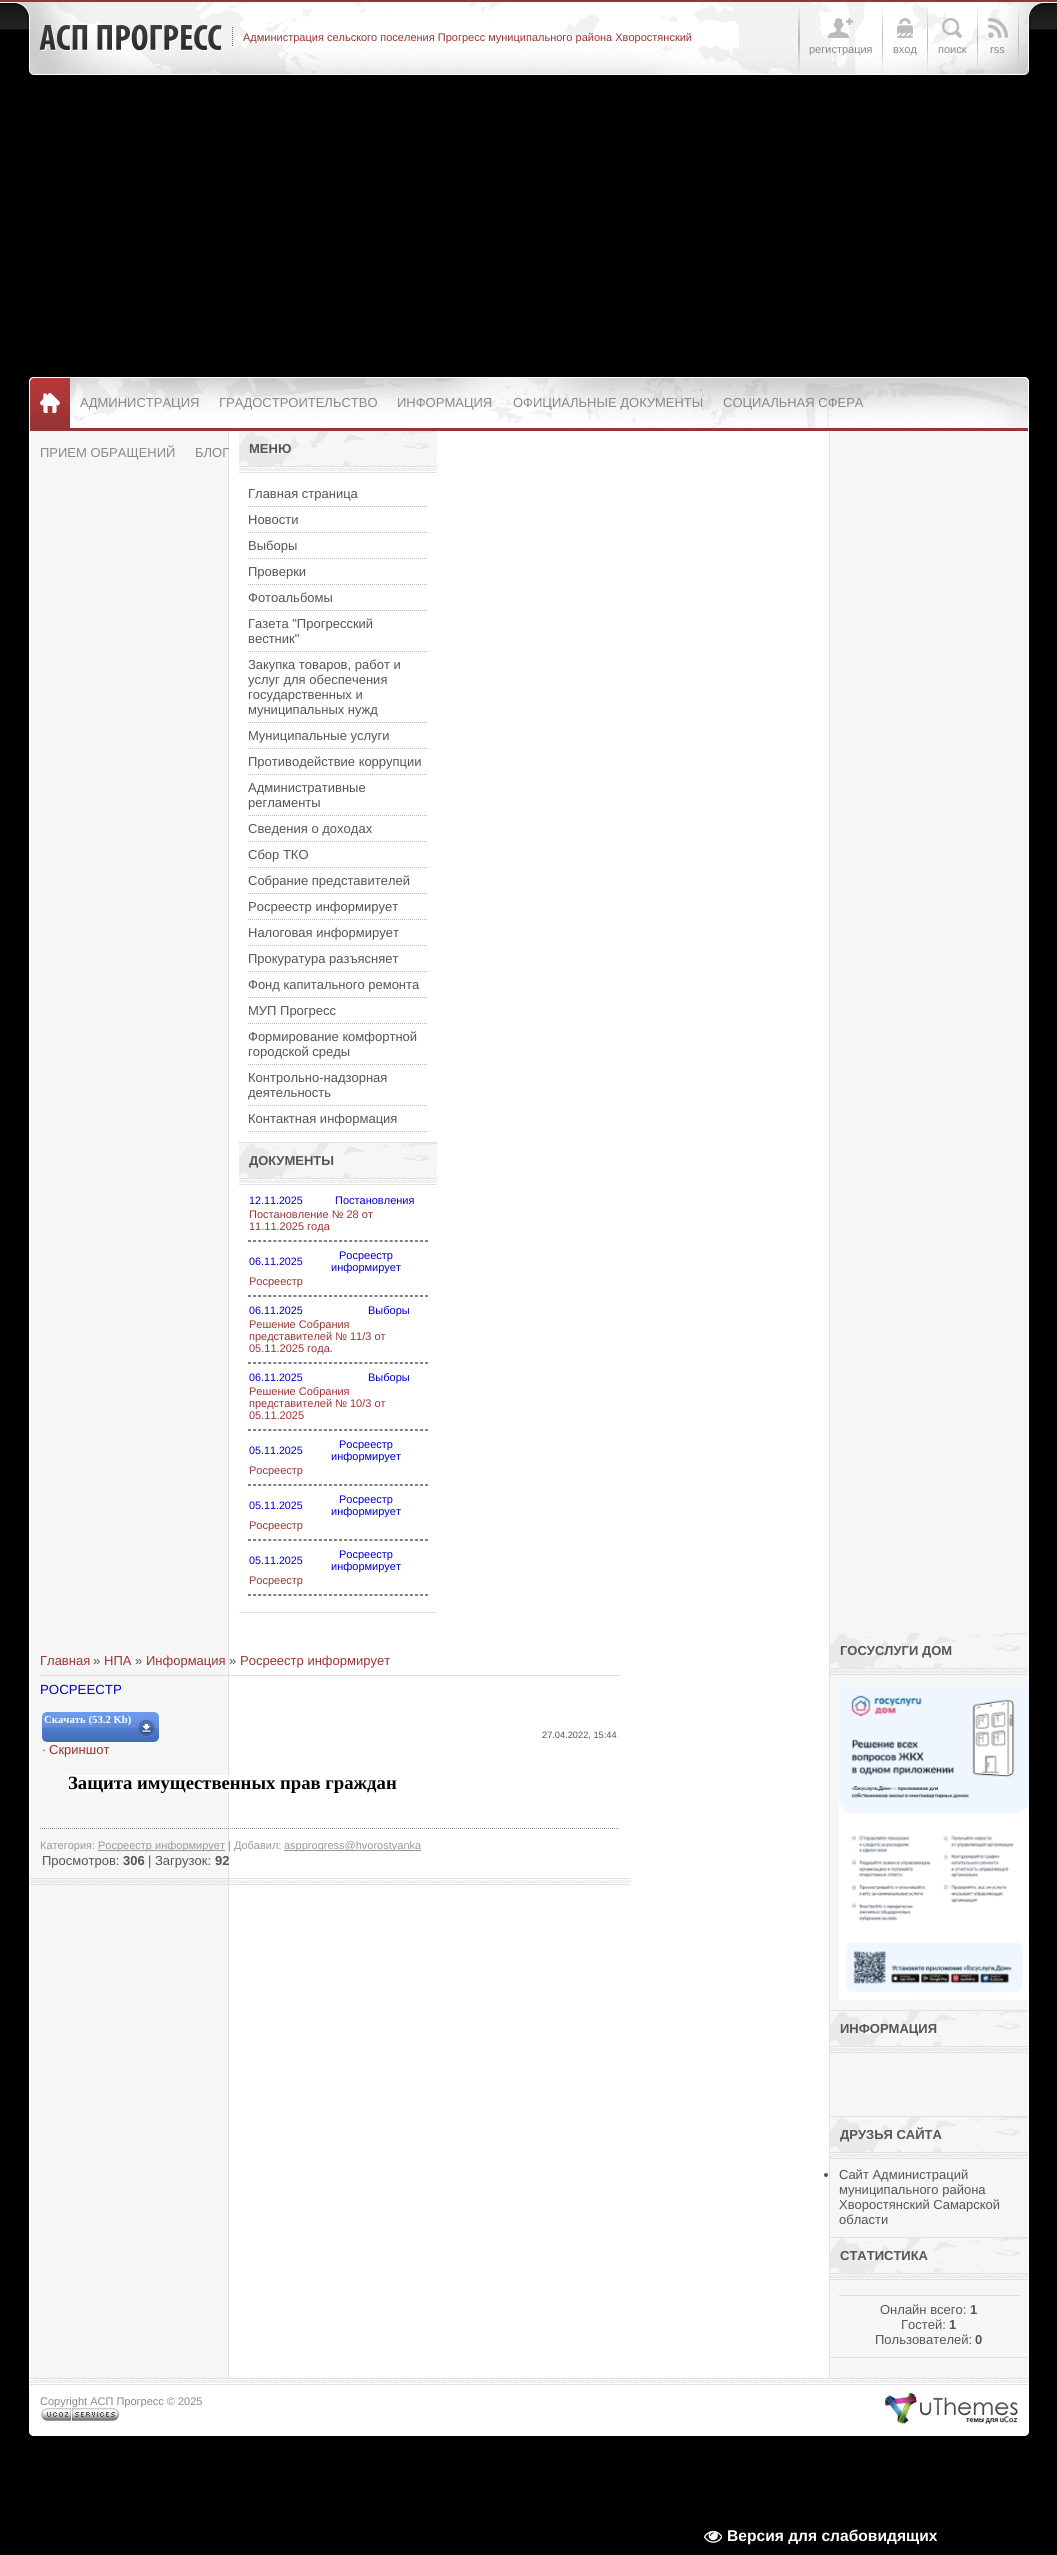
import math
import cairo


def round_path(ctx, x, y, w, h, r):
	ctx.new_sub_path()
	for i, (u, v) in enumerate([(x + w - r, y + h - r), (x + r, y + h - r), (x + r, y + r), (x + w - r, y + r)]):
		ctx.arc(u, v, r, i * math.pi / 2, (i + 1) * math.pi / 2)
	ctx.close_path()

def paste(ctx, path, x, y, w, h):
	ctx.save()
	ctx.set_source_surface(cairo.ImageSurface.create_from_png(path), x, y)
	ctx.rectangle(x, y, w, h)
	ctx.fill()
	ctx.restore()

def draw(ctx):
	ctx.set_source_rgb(0, 0, 0)
	ctx.paint()
	paste(ctx, 'media/1.png', 0, 0, 1057, 30)
	paste(ctx, 'media/2.png', 15, 2, 1028, 73)
	paste(ctx, 'media/3.png', 39, 25, 49, 26)
	paste(ctx, 'media/4.png', 97, 24, 126, 27)
	ctx.new_path()
	ctx.move_to(232.5, 27)
	ctx.line_to(232.5, 47)
	ctx.set_source_rgb(0.467, 0.467, 0.467)
	ctx.set_line_width(1)
	ctx.set_dash([1, 1])
	ctx.stroke()
	ctx.select_font_face('Liberation Sans')
	ctx.set_font_size(11)
	ctx.set_source_rgb(0.604, 0.2, 0.204)
	ctx.move_to(243, 41)
	ctx.show_text('Администрация сельского поселения Прогресс муниципального района Хворостянский')
	paste(ctx, 'media/5.png', 798, 6, 2, 66)
	paste(ctx, 'media/6.png', 882, 6, 1, 66)
	paste(ctx, 'media/7.png', 828, 18, 25, 20)
	ctx.set_source_rgb(0.533, 0.533, 0.533)
	ctx.move_to(809, 53)
	ctx.show_text('регистрация')
	paste(ctx, 'media/8.png', 927, 6, 1, 66)
	paste(ctx, 'media/9.png', 897, 18, 16, 20)
	ctx.move_to(893, 53)
	ctx.show_text('вход')
	paste(ctx, 'media/10.png', 977, 6, 1, 64)
	paste(ctx, 'media/11.png', 942, 18, 20, 20)
	ctx.move_to(938, 53)
	ctx.show_text('поиск')
	paste(ctx, 'media/12.png', 1018, 6, 1, 61)
	paste(ctx, 'media/13.png', 988, 18, 20, 20)
	ctx.move_to(990, 53)
	ctx.show_text('rss')
	paste(ctx, 'media/14.png', 29, 377, 1000, 2059)
	round_path(ctx, 29.5, 377.5, 999, 2058, 4.5)
	ctx.set_source_rgb(1, 1, 1)
	ctx.set_dash([])
	ctx.stroke()
	paste(ctx, 'media/15.png', 30, 378, 998, 50)
	ctx.set_source_rgb(0.604, 0.2, 0.204)
	ctx.rectangle(30, 428, 998, 3)
	ctx.fill()
	ctx.new_path()
	ctx.move_to(35, 378)
	ctx.line_to(70, 378)
	ctx.line_to(70, 428)
	ctx.line_to(30, 428)
	ctx.line_to(30, 383)
	ctx.curve_to(30, 380, 32, 378, 35, 378)
	ctx.close_path()
	ctx.fill()
	paste(ctx, 'media/16.png', 30, 378, 40, 40)
	paste(ctx, 'media/17.png', 40, 393, 20, 20)
	ctx.set_font_size(13)
	ctx.set_source_rgb(0.533, 0.533, 0.533)
	for x, y, s in [
		(80, 407, 'АДМИНИСТРАЦИЯ'),
		(219, 407, 'ГРАДОСТРОИТЕЛЬСТВО'),
		(397, 407, 'ИНФОРМАЦИЯ'),
		(513, 407, 'ОФИЦИАЛЬНЫЕ ДОКУМЕНТЫ'),
		(723, 407, 'СОЦИАЛЬНАЯ СФЕРА'),
		(40, 457, 'ПРИЕМ ОБРАЩЕНИЙ'),
		(195, 457, 'БЛОГ'),
	]:
		ctx.move_to(x, y)
		ctx.show_text(s)
	paste(ctx, 'media/18.png', 239, 431, 198, 35)
	ctx.select_font_face('Liberation Sans', cairo.FONT_SLANT_NORMAL, cairo.FONT_WEIGHT_BOLD)
	ctx.set_source_rgb(0.333, 0.333, 0.333)
	ctx.move_to(249, 453)
	ctx.show_text('МЕНЮ')
	paste(ctx, 'media/19.png', 239, 466, 198, 7)
	ctx.set_source_rgb(0.882, 0.882, 0.882)
	ctx.rectangle(239, 1142, 198, 1)
	ctx.fill()
	ctx.new_path()
	ctx.move_to(248, 506.5)
	ctx.line_to(428, 506.5)
	ctx.set_source_rgb(0.733, 0.733, 0.733)
	ctx.set_dash([1, 1])
	ctx.stroke()
	ctx.select_font_face('Liberation Sans')
	ctx.set_source_rgb(0.333, 0.333, 0.333)
	ctx.move_to(248, 498)
	ctx.show_text('Главная страница')
	ctx.new_path()
	ctx.move_to(248, 532.5)
	ctx.line_to(428, 532.5)
	ctx.set_source_rgb(0.733, 0.733, 0.733)
	ctx.stroke()
	ctx.set_source_rgb(0.333, 0.333, 0.333)
	ctx.move_to(248, 524)
	ctx.show_text('Новости')
	ctx.new_path()
	ctx.move_to(248, 558.5)
	ctx.line_to(428, 558.5)
	ctx.set_source_rgb(0.733, 0.733, 0.733)
	ctx.stroke()
	ctx.set_source_rgb(0.333, 0.333, 0.333)
	ctx.move_to(248, 550)
	ctx.show_text('Выборы')
	ctx.new_path()
	ctx.move_to(248, 584.5)
	ctx.line_to(428, 584.5)
	ctx.set_source_rgb(0.733, 0.733, 0.733)
	ctx.stroke()
	ctx.set_source_rgb(0.333, 0.333, 0.333)
	ctx.move_to(248, 576)
	ctx.show_text('Проверки')
	ctx.new_path()
	ctx.move_to(248, 610.5)
	ctx.line_to(428, 610.5)
	ctx.set_source_rgb(0.733, 0.733, 0.733)
	ctx.stroke()
	ctx.set_source_rgb(0.333, 0.333, 0.333)
	ctx.move_to(248, 602)
	ctx.show_text('Фотоальбомы')
	ctx.new_path()
	ctx.move_to(248, 651.5)
	ctx.line_to(428, 651.5)
	ctx.set_source_rgb(0.733, 0.733, 0.733)
	ctx.stroke()
	ctx.set_source_rgb(0.333, 0.333, 0.333)
	ctx.move_to(248, 628)
	ctx.show_text('Газета "Прогресский')
	ctx.move_to(248, 643)
	ctx.show_text('вестник"')
	ctx.new_path()
	ctx.move_to(248, 722.5)
	ctx.line_to(428, 722.5)
	ctx.set_source_rgb(0.733, 0.733, 0.733)
	ctx.stroke()
	ctx.set_source_rgb(0.333, 0.333, 0.333)
	for x, y, s in [
		(248, 669, 'Закупка товаров, работ и'),
		(248, 684, 'услуг для обеспечения'),
		(248, 699, 'государственных и'),
		(248, 714, 'муниципальных нужд'),
	]:
		ctx.move_to(x, y)
		ctx.show_text(s)
	ctx.new_path()
	ctx.move_to(248, 748.5)
	ctx.line_to(428, 748.5)
	ctx.set_source_rgb(0.733, 0.733, 0.733)
	ctx.stroke()
	ctx.set_source_rgb(0.333, 0.333, 0.333)
	ctx.move_to(248, 740)
	ctx.show_text('Муниципальные услуги')
	ctx.new_path()
	ctx.move_to(248, 774.5)
	ctx.line_to(428, 774.5)
	ctx.set_source_rgb(0.733, 0.733, 0.733)
	ctx.stroke()
	ctx.set_source_rgb(0.333, 0.333, 0.333)
	ctx.move_to(248, 766)
	ctx.show_text('Противодействие коррупции')
	ctx.new_path()
	ctx.move_to(248, 815.5)
	ctx.line_to(428, 815.5)
	ctx.set_source_rgb(0.733, 0.733, 0.733)
	ctx.stroke()
	ctx.set_source_rgb(0.333, 0.333, 0.333)
	ctx.move_to(248, 792)
	ctx.show_text('Административные')
	ctx.move_to(248, 807)
	ctx.show_text('регламенты')
	ctx.new_path()
	ctx.move_to(248, 841.5)
	ctx.line_to(428, 841.5)
	ctx.set_source_rgb(0.733, 0.733, 0.733)
	ctx.stroke()
	ctx.set_source_rgb(0.333, 0.333, 0.333)
	ctx.move_to(248, 833)
	ctx.show_text('Сведения о доходах')
	ctx.new_path()
	ctx.move_to(248, 867.5)
	ctx.line_to(428, 867.5)
	ctx.set_source_rgb(0.733, 0.733, 0.733)
	ctx.stroke()
	ctx.set_source_rgb(0.333, 0.333, 0.333)
	ctx.move_to(248, 859)
	ctx.show_text('Сбор ТКО')
	ctx.new_path()
	ctx.move_to(248, 893.5)
	ctx.line_to(428, 893.5)
	ctx.set_source_rgb(0.733, 0.733, 0.733)
	ctx.stroke()
	ctx.set_source_rgb(0.333, 0.333, 0.333)
	ctx.move_to(248, 885)
	ctx.show_text('Собрание представителей')
	ctx.new_path()
	ctx.move_to(248, 919.5)
	ctx.line_to(428, 919.5)
	ctx.set_source_rgb(0.733, 0.733, 0.733)
	ctx.stroke()
	ctx.set_source_rgb(0.333, 0.333, 0.333)
	ctx.move_to(248, 911)
	ctx.show_text('Росреестр информирует')
	ctx.new_path()
	ctx.move_to(248, 945.5)
	ctx.line_to(428, 945.5)
	ctx.set_source_rgb(0.733, 0.733, 0.733)
	ctx.stroke()
	ctx.set_source_rgb(0.333, 0.333, 0.333)
	ctx.move_to(248, 937)
	ctx.show_text('Налоговая информирует')
	ctx.new_path()
	ctx.move_to(248, 971.5)
	ctx.line_to(428, 971.5)
	ctx.set_source_rgb(0.733, 0.733, 0.733)
	ctx.stroke()
	ctx.set_source_rgb(0.333, 0.333, 0.333)
	ctx.move_to(248, 963)
	ctx.show_text('Прокуратура разъясняет')
	ctx.new_path()
	ctx.move_to(248, 997.5)
	ctx.line_to(428, 997.5)
	ctx.set_source_rgb(0.733, 0.733, 0.733)
	ctx.stroke()
	ctx.set_source_rgb(0.333, 0.333, 0.333)
	ctx.move_to(248, 989)
	ctx.show_text('Фонд капитального ремонта')
	ctx.new_path()
	ctx.move_to(248, 1023.5)
	ctx.line_to(428, 1023.5)
	ctx.set_source_rgb(0.733, 0.733, 0.733)
	ctx.stroke()
	ctx.set_source_rgb(0.333, 0.333, 0.333)
	ctx.move_to(248, 1015)
	ctx.show_text('МУП Прогресс')
	ctx.new_path()
	ctx.move_to(248, 1064.5)
	ctx.line_to(428, 1064.5)
	ctx.set_source_rgb(0.733, 0.733, 0.733)
	ctx.stroke()
	ctx.set_source_rgb(0.333, 0.333, 0.333)
	ctx.move_to(248, 1041)
	ctx.show_text('Формирование комфортной')
	ctx.move_to(248, 1056)
	ctx.show_text('городской среды')
	ctx.new_path()
	ctx.move_to(248, 1105.5)
	ctx.line_to(428, 1105.5)
	ctx.set_source_rgb(0.733, 0.733, 0.733)
	ctx.stroke()
	ctx.set_source_rgb(0.333, 0.333, 0.333)
	ctx.move_to(248, 1082)
	ctx.show_text('Контрольно-надзорная')
	ctx.move_to(248, 1097)
	ctx.show_text('деятельность')
	ctx.new_path()
	ctx.move_to(248, 1131.5)
	ctx.line_to(428, 1131.5)
	ctx.set_source_rgb(0.733, 0.733, 0.733)
	ctx.stroke()
	ctx.set_source_rgb(0.333, 0.333, 0.333)
	ctx.move_to(248, 1123)
	ctx.show_text('Контактная информация')
	paste(ctx, 'media/18.png', 239, 1143, 198, 35)
	ctx.select_font_face('Liberation Sans', cairo.FONT_SLANT_NORMAL, cairo.FONT_WEIGHT_BOLD)
	ctx.move_to(249, 1165)
	ctx.show_text('ДОКУМЕНТЫ')
	paste(ctx, 'media/19.png', 239, 1178, 198, 7)
	ctx.set_source_rgb(0.882, 0.882, 0.882)
	ctx.rectangle(239, 1612, 198, 1)
	ctx.fill()
	ctx.select_font_face('Liberation Sans')
	ctx.set_font_size(10.75)
	ctx.set_source_rgb(0, 0, 0.804)
	ctx.move_to(249, 1204)
	ctx.show_text('12.11.2025')
	ctx.set_font_size(11)
	ctx.move_to(335, 1204)
	ctx.show_text('Постановления')
	ctx.set_source_rgb(0.604, 0.2, 0.204)
	ctx.move_to(249, 1218)
	ctx.show_text('Постановление № 28 от')
	ctx.move_to(249, 1230)
	ctx.show_text('11.11.2025 года')
	ctx.new_path()
	ctx.move_to(248, 1240.5)
	ctx.line_to(428, 1240.5)
	ctx.set_source_rgb(0.502, 0.502, 0.502)
	ctx.set_dash([3, 2.06])
	ctx.stroke()
	ctx.rectangle(427, 1240, 1, 2)
	ctx.fill()
	ctx.new_path()
	ctx.move_to(248, 1241.5)
	ctx.line_to(428, 1241.5)
	ctx.stroke()
	ctx.set_font_size(10.75)
	ctx.set_source_rgb(0, 0, 0.804)
	ctx.move_to(249, 1265)
	ctx.show_text('06.11.2025')
	ctx.set_font_size(11)
	ctx.move_to(339, 1259)
	ctx.show_text('Росреестр')
	ctx.move_to(331, 1271)
	ctx.show_text('информирует')
	ctx.set_source_rgb(0.604, 0.2, 0.204)
	ctx.move_to(249, 1285)
	ctx.show_text('Росреестр')
	ctx.new_path()
	ctx.move_to(248, 1295.5)
	ctx.line_to(428, 1295.5)
	ctx.set_source_rgb(0.502, 0.502, 0.502)
	ctx.stroke()
	ctx.rectangle(427, 1295, 1, 2)
	ctx.fill()
	ctx.new_path()
	ctx.move_to(248, 1296.5)
	ctx.line_to(428, 1296.5)
	ctx.stroke()
	ctx.set_font_size(10.75)
	ctx.set_source_rgb(0, 0, 0.804)
	ctx.move_to(249, 1314)
	ctx.show_text('06.11.2025')
	ctx.set_font_size(11)
	ctx.move_to(368, 1314)
	ctx.show_text('Выборы')
	ctx.set_source_rgb(0.604, 0.2, 0.204)
	for x, y, s in [
		(249, 1328, 'Решение Собрания'),
		(249, 1340, 'представителей № 11/3 от'),
		(249, 1352, '05.11.2025 года.'),
	]:
		ctx.move_to(x, y)
		ctx.show_text(s)
	ctx.new_path()
	ctx.move_to(248, 1362.5)
	ctx.line_to(428, 1362.5)
	ctx.set_source_rgb(0.502, 0.502, 0.502)
	ctx.stroke()
	ctx.rectangle(427, 1362, 1, 2)
	ctx.fill()
	ctx.new_path()
	ctx.move_to(248, 1363.5)
	ctx.line_to(428, 1363.5)
	ctx.stroke()
	ctx.set_font_size(10.75)
	ctx.set_source_rgb(0, 0, 0.804)
	ctx.move_to(249, 1381)
	ctx.show_text('06.11.2025')
	ctx.set_font_size(11)
	ctx.move_to(368, 1381)
	ctx.show_text('Выборы')
	ctx.set_source_rgb(0.604, 0.2, 0.204)
	for x, y, s in [
		(249, 1395, 'Решение Собрания'),
		(249, 1407, 'представителей № 10/3 от'),
		(249, 1419, '05.11.2025'),
	]:
		ctx.move_to(x, y)
		ctx.show_text(s)
	ctx.new_path()
	ctx.move_to(248, 1429.5)
	ctx.line_to(428, 1429.5)
	ctx.set_source_rgb(0.502, 0.502, 0.502)
	ctx.stroke()
	ctx.rectangle(427, 1429, 1, 2)
	ctx.fill()
	ctx.new_path()
	ctx.move_to(248, 1430.5)
	ctx.line_to(428, 1430.5)
	ctx.stroke()
	ctx.set_font_size(10.75)
	ctx.set_source_rgb(0, 0, 0.804)
	ctx.move_to(249, 1454)
	ctx.show_text('05.11.2025')
	ctx.set_font_size(11)
	ctx.move_to(339, 1448)
	ctx.show_text('Росреестр')
	ctx.move_to(331, 1460)
	ctx.show_text('информирует')
	ctx.set_source_rgb(0.604, 0.2, 0.204)
	ctx.move_to(249, 1474)
	ctx.show_text('Росреестр')
	ctx.new_path()
	ctx.move_to(248, 1484.5)
	ctx.line_to(428, 1484.5)
	ctx.set_source_rgb(0.502, 0.502, 0.502)
	ctx.stroke()
	ctx.rectangle(427, 1484, 1, 2)
	ctx.fill()
	ctx.new_path()
	ctx.move_to(248, 1485.5)
	ctx.line_to(428, 1485.5)
	ctx.stroke()
	ctx.set_font_size(10.75)
	ctx.set_source_rgb(0, 0, 0.804)
	ctx.move_to(249, 1509)
	ctx.show_text('05.11.2025')
	ctx.set_font_size(11)
	ctx.move_to(339, 1503)
	ctx.show_text('Росреестр')
	ctx.move_to(331, 1515)
	ctx.show_text('информирует')
	ctx.set_source_rgb(0.604, 0.2, 0.204)
	ctx.move_to(249, 1529)
	ctx.show_text('Росреестр')
	ctx.new_path()
	ctx.move_to(248, 1539.5)
	ctx.line_to(428, 1539.5)
	ctx.set_source_rgb(0.502, 0.502, 0.502)
	ctx.stroke()
	ctx.rectangle(427, 1539, 1, 2)
	ctx.fill()
	ctx.new_path()
	ctx.move_to(248, 1540.5)
	ctx.line_to(428, 1540.5)
	ctx.stroke()
	ctx.set_font_size(10.75)
	ctx.set_source_rgb(0, 0, 0.804)
	ctx.move_to(249, 1564)
	ctx.show_text('05.11.2025')
	ctx.set_font_size(11)
	ctx.move_to(339, 1558)
	ctx.show_text('Росреестр')
	ctx.move_to(331, 1570)
	ctx.show_text('информирует')
	ctx.set_source_rgb(0.604, 0.2, 0.204)
	ctx.move_to(249, 1584)
	ctx.show_text('Росреестр')
	ctx.new_path()
	ctx.move_to(248, 1594.5)
	ctx.line_to(428, 1594.5)
	ctx.set_source_rgb(0.502, 0.502, 0.502)
	ctx.stroke()
	ctx.rectangle(427, 1594, 1, 2)
	ctx.fill()
	ctx.new_path()
	ctx.move_to(248, 1595.5)
	ctx.line_to(428, 1595.5)
	ctx.stroke()
	ctx.set_font_size(13)
	ctx.set_source_rgb(0.604, 0.2, 0.204)
	ctx.move_to(40, 1665)
	ctx.show_text('Главная')
	ctx.set_source_rgb(0.333, 0.333, 0.333)
	ctx.move_to(93, 1665)
	ctx.show_text('»')
	ctx.set_source_rgb(0.604, 0.2, 0.204)
	ctx.move_to(104, 1665)
	ctx.show_text('НПА')
	ctx.set_source_rgb(0.333, 0.333, 0.333)
	ctx.move_to(135, 1665)
	ctx.show_text('»')
	ctx.set_source_rgb(0.604, 0.2, 0.204)
	ctx.move_to(146, 1665)
	ctx.show_text('Информация')
	ctx.set_source_rgb(0.333, 0.333, 0.333)
	ctx.move_to(229, 1665)
	ctx.show_text('»')
	ctx.set_source_rgb(0.604, 0.2, 0.204)
	ctx.move_to(240, 1665)
	ctx.show_text('Росреестр информирует')
	ctx.set_source_rgb(0.867, 0.867, 0.867)
	ctx.rectangle(40, 1675, 580, 1)
	ctx.fill()
	ctx.set_font_size(13.25)
	ctx.set_source_rgb(0, 0, 0.804)
	ctx.move_to(40, 1694)
	ctx.show_text('РОСРЕЕСТР')
	paste(ctx, 'media/20.png', 30, 1878, 600, 7)
	paste(ctx, 'media/21.png', 42, 1712, 117, 30)
	ctx.select_font_face('Liberation Serif', cairo.FONT_SLANT_NORMAL, cairo.FONT_WEIGHT_BOLD)
	ctx.set_font_size(10.75)
	ctx.set_source_rgb(1, 1, 1)
	ctx.move_to(44, 1723)
	ctx.show_text('Скачать (53.2 Kb)')
	ctx.select_font_face('Liberation Sans')
	ctx.set_font_size(13)
	ctx.set_source_rgb(0.333, 0.333, 0.333)
	ctx.move_to(42, 1754)
	ctx.show_text('·')
	ctx.set_source_rgb(0.604, 0.2, 0.204)
	ctx.move_to(49, 1754)
	ctx.show_text('Скриншот')
	ctx.set_font_size(9.25)
	ctx.set_source_rgb(0.333, 0.333, 0.333)
	ctx.move_to(542, 1738)
	ctx.show_text('27.04.2022, 15:44')
	ctx.set_source_rgb(1, 1, 1)
	ctx.rectangle(68, 1775, 161, 17)
	ctx.fill()
	ctx.select_font_face('Liberation Serif', cairo.FONT_SLANT_NORMAL, cairo.FONT_WEIGHT_BOLD)
	ctx.set_font_size(18.7)
	ctx.set_source_rgb(0, 0, 0)
	ctx.move_to(68, 1789)
	ctx.show_text('Защита имущественных прав граждан')
	ctx.new_path()
	ctx.move_to(40, 1828.5)
	ctx.line_to(620, 1828.5)
	ctx.set_source_rgb(0.6, 0.6, 0.6)
	ctx.set_dash([1, 1])
	ctx.stroke()
	ctx.select_font_face('Liberation Sans')
	ctx.set_font_size(11)
	ctx.move_to(40, 1849)
	ctx.show_text('Категория:')
	ctx.rectangle(98, 1850, 127, 1)
	ctx.fill()
	ctx.move_to(98, 1849)
	ctx.show_text('Росреестр информирует | Добавил:')
	ctx.rectangle(284, 1850, 137, 1)
	ctx.fill()
	ctx.move_to(284, 1849)
	ctx.show_text('aspprogress@hvorostyanka')
	ctx.set_font_size(13)
	ctx.set_source_rgb(0.333, 0.333, 0.333)
	ctx.move_to(42, 1865)
	ctx.show_text('Просмотров:')
	ctx.select_font_face('Liberation Sans', cairo.FONT_SLANT_NORMAL, cairo.FONT_WEIGHT_BOLD)
	ctx.move_to(123, 1865)
	ctx.show_text('306')
	ctx.select_font_face('Liberation Sans')
	ctx.move_to(148, 1865)
	ctx.show_text('| Загрузок:')
	ctx.select_font_face('Liberation Sans', cairo.FONT_SLANT_NORMAL, cairo.FONT_WEIGHT_BOLD)
	ctx.move_to(215, 1865)
	ctx.show_text('92')
	paste(ctx, 'media/18.png', 830, 1633, 198, 35)
	ctx.move_to(840, 1655)
	ctx.show_text('ГОСУСЛУГИ ДОМ')
	paste(ctx, 'media/22.png', 830, 1668, 198, 7)
	ctx.set_source_rgb(0.882, 0.882, 0.882)
	ctx.rectangle(830, 2010, 198, 1)
	ctx.fill()
	paste(ctx, 'media/23.png', 839, 1683, 190, 317)
	paste(ctx, 'media/18.png', 830, 2011, 198, 35)
	ctx.set_source_rgb(0.333, 0.333, 0.333)
	ctx.move_to(840, 2033)
	ctx.show_text('ИНФОРМАЦИЯ')
	paste(ctx, 'media/22.png', 830, 2046, 198, 7)
	ctx.set_source_rgb(0.882, 0.882, 0.882)
	ctx.rectangle(830, 2116, 198, 1)
	ctx.fill()
	paste(ctx, 'media/18.png', 830, 2117, 198, 35)
	ctx.set_source_rgb(0.333, 0.333, 0.333)
	ctx.move_to(840, 2139)
	ctx.show_text('ДРУЗЬЯ САЙТА')
	paste(ctx, 'media/22.png', 830, 2152, 198, 7)
	ctx.set_source_rgb(0.882, 0.882, 0.882)
	ctx.rectangle(830, 2237, 198, 1)
	ctx.fill()
	ctx.set_source_rgb(0.333, 0.333, 0.333)
	ctx.arc(826, 2175, 2, 0, 2 * math.pi)
	ctx.fill()
	ctx.select_font_face('Liberation Sans')
	for x, y, s in [
		(839, 2179, 'Сайт Администраций'),
		(839, 2194, 'муниципального района'),
		(839, 2209, 'Хворостянский Самарской'),
		(839, 2224, 'области'),
	]:
		ctx.move_to(x, y)
		ctx.show_text(s)
	paste(ctx, 'media/18.png', 830, 2238, 198, 35)
	ctx.select_font_face('Liberation Sans', cairo.FONT_SLANT_NORMAL, cairo.FONT_WEIGHT_BOLD)
	ctx.move_to(840, 2260)
	ctx.show_text('СТАТИСТИКА')
	paste(ctx, 'media/22.png', 830, 2273, 198, 7)
	ctx.set_source_rgb(0.882, 0.882, 0.882)
	ctx.rectangle(830, 2357, 198, 1)
	ctx.fill()
	ctx.set_source_rgb(0.867, 0.867, 0.867)
	ctx.rectangle(839, 2295, 180, 1)
	ctx.fill()
	ctx.select_font_face('Liberation Sans')
	ctx.set_source_rgb(0.333, 0.333, 0.333)
	ctx.move_to(880, 2314)
	ctx.show_text('Онлайн всего:')
	ctx.select_font_face('Liberation Sans', cairo.FONT_SLANT_NORMAL, cairo.FONT_WEIGHT_BOLD)
	ctx.move_to(970, 2314)
	ctx.show_text('1')
	ctx.select_font_face('Liberation Sans')
	ctx.move_to(901, 2329)
	ctx.show_text('Гостей:')
	ctx.select_font_face('Liberation Sans', cairo.FONT_SLANT_NORMAL, cairo.FONT_WEIGHT_BOLD)
	ctx.move_to(949, 2329)
	ctx.show_text('1')
	ctx.select_font_face('Liberation Sans')
	ctx.move_to(875, 2344)
	ctx.show_text('Пользователей:')
	ctx.select_font_face('Liberation Sans', cairo.FONT_SLANT_NORMAL, cairo.FONT_WEIGHT_BOLD)
	ctx.move_to(975, 2344)
	ctx.show_text('0')
	ctx.set_source_rgb(1, 1, 1)
	ctx.new_path()
	ctx.move_to(30, 2378)
	ctx.line_to(1028, 2378)
	ctx.line_to(1028, 2430)
	ctx.curve_to(1028, 2433, 1026, 2435, 1023, 2435)
	ctx.line_to(35, 2435)
	ctx.curve_to(32, 2435, 30, 2433, 30, 2430)
	ctx.close_path()
	ctx.fill()
	paste(ctx, 'media/24.png', 30, 2378, 998, 7)
	ctx.select_font_face('Liberation Sans')
	ctx.set_font_size(11)
	ctx.set_source_rgb(0.533, 0.533, 0.533)
	ctx.move_to(40, 2405)
	ctx.show_text('Copyright АСП Прогресс © 2025')
	paste(ctx, 'media/25.png', 41, 2408, 78, 13)
	paste(ctx, 'media/26.png', 885, 2393, 133, 32)
	paste(ctx, 'media/27.png', 704, 2530, 18, 13)
	ctx.select_font_face('Liberation Sans', cairo.FONT_SLANT_NORMAL, cairo.FONT_WEIGHT_BOLD)
	ctx.set_font_size(15.6)
	ctx.set_source_rgb(1, 1, 1)
	ctx.move_to(727, 2541)
	ctx.show_text('Версия для слабовидящих')


surface = cairo.ImageSurface(cairo.FORMAT_RGB24, 1057, 2555)
ctx = cairo.Context(surface)
options = cairo.FontOptions()
options.set_hint_metrics(cairo.HINT_METRICS_OFF)
options.set_hint_style(cairo.HINT_STYLE_NONE)
ctx.set_font_options(options)
ctx.set_miter_limit(4)
draw(ctx)
surface.write_to_png('image.png')
